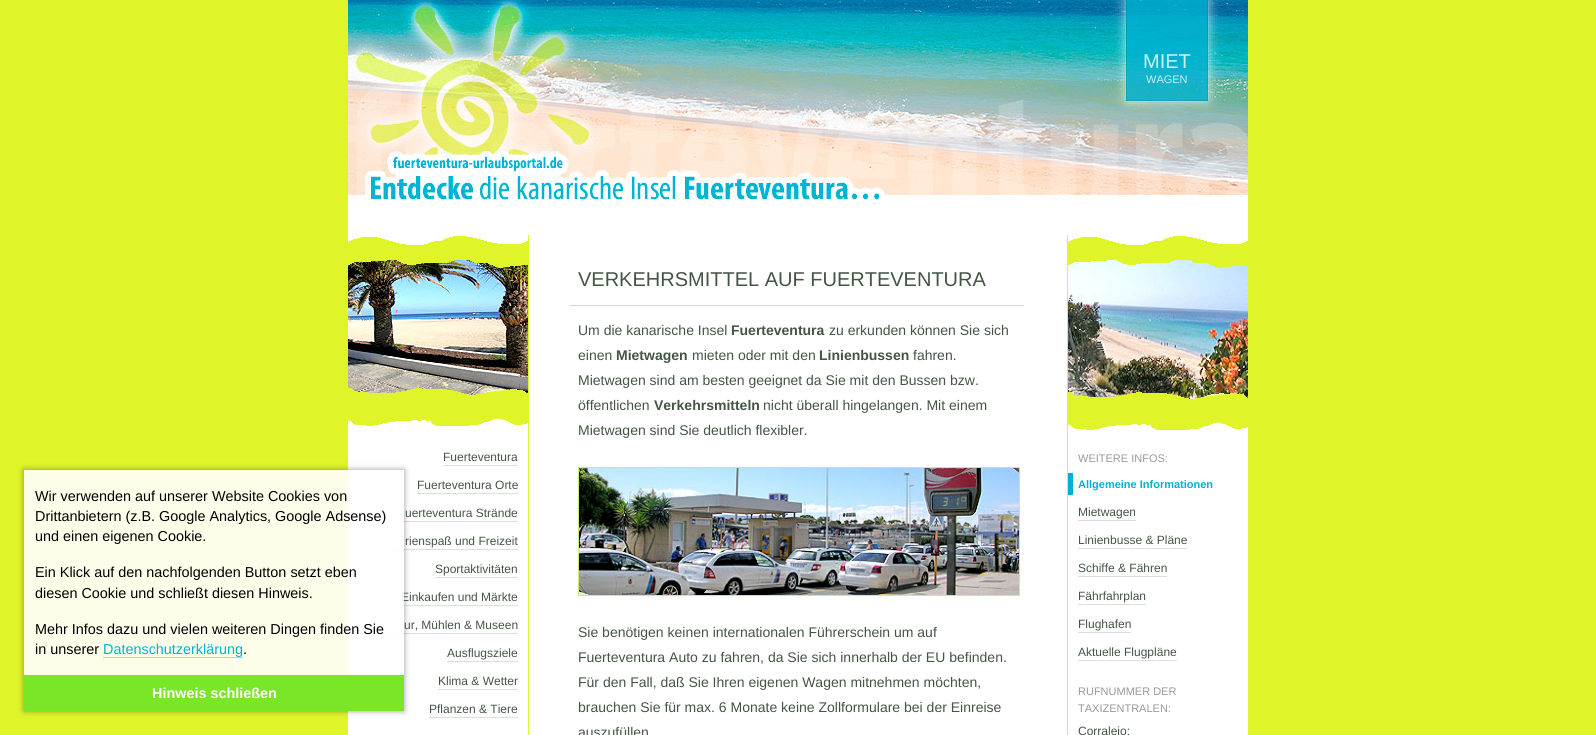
import math
import cairo


def round_path(ctx, x, y, w, h, r):
	ctx.new_sub_path()
	for i, (u, v) in enumerate([(x + w - r, y + h - r), (x + r, y + h - r), (x + r, y + r), (x + w - r, y + r)]):
		ctx.arc(u, v, r, i * math.pi / 2, (i + 1) * math.pi / 2)
	ctx.close_path()

def blur_box(ctx, x, y, w, h, r, blur, alpha):
	ctx.push_group_with_content(cairo.CONTENT_ALPHA)
	ctx.set_operator(cairo.OPERATOR_SOURCE)
	for i in range(15, -16, -2):
		e = blur * i / 6
		if min(w, h) + 2 * e > 0:
			ctx.set_source_rgba(0, 0, 0, alpha * math.erfc((i - 1) / 8.5) / 2)
			round_path(ctx, x - e, y - e, w + 2 * e, h + 2 * e, max(0, min(r + e + blur * .6, min(w, h) / 2 + e)))
			ctx.fill()
	ctx.mask(ctx.pop_group())

def paste(ctx, path, x, y, w, h):
	ctx.save()
	ctx.set_source_surface(cairo.ImageSurface.create_from_png(path), x, y)
	ctx.rectangle(x, y, w, h)
	ctx.fill()
	ctx.restore()

def draw(ctx):
	ctx.set_source_rgb(0.875, 0.957, 0.161)
	ctx.paint()
	ctx.set_source_rgb(1, 1, 1)
	ctx.rectangle(348, 220, 900, 515)
	ctx.fill()
	ctx.set_source_rgb(0.867, 0.867, 0.867)
	ctx.rectangle(398, 521, 120, 1)
	ctx.rectangle(391, 549, 127, 1)
	ctx.rectangle(401, 605, 117, 1)
	ctx.rectangle(383, 633, 135, 1)
	ctx.fill()
	ctx.save()
	ctx.set_fill_rule(cairo.FILL_RULE_EVEN_ODD)
	ctx.new_path()
	ctx.move_to(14, 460)
	ctx.line_to(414, 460)
	ctx.line_to(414, 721)
	ctx.line_to(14, 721)
	ctx.close_path()
	ctx.move_to(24, 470)
	ctx.line_to(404, 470)
	ctx.line_to(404, 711)
	ctx.line_to(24, 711)
	ctx.close_path()
	ctx.clip()
	ctx.set_source_rgb(0, 0, 0)
	blur_box(ctx, 24, 470, 380, 241, 0, 3, 0.4)
	ctx.restore()
	ctx.select_font_face('Liberation Sans')
	ctx.set_font_size(12)
	ctx.set_source_rgb(0.267, 0.333, 0.267)
	ctx.move_to(401, 601)
	ctx.show_text('Einkaufen und Märkte')
	ctx.set_source_rgba(1, 1, 1, 0.9)
	ctx.rectangle(24, 470, 380, 205)
	ctx.fill()
	ctx.set_font_size(14.4)
	ctx.set_source_rgb(0, 0, 0)
	for x, y, s in [
		(35, 501, 'Wir verwenden auf unserer Website Cookies von'),
		(35, 521, 'Drittanbietern (z.B. Google Analytics, Google Adsense)'),
		(35, 541, 'und einen eigenen Cookie.'),
		(35, 577, 'Ein Klick auf den nachfolgenden Button setzt eben'),
		(35, 598, 'diesen Cookie und schließt diesen Hinweis.'),
		(35, 634, 'Mehr Infos dazu und vielen weiteren Dingen finden Sie'),
		(35, 654, 'in unserer'),
	]:
		ctx.move_to(x, y)
		ctx.show_text(s)
	ctx.set_source_rgb(0, 0.694, 0.82)
	ctx.move_to(103, 654)
	ctx.show_text('Datenschutzerklärung')
	ctx.set_source_rgb(0.592, 0.875, 0.878)
	ctx.rectangle(103, 657, 140, 1)
	ctx.fill()
	ctx.set_source_rgb(0, 0, 0)
	ctx.move_to(243, 654)
	ctx.show_text('.')
	ctx.set_source_rgb(0.475, 0.902, 0.153)
	ctx.rectangle(24, 675, 380, 36)
	ctx.fill()
	ctx.select_font_face('Liberation Sans', cairo.FONT_SLANT_NORMAL, cairo.FONT_WEIGHT_BOLD)
	ctx.set_source_rgb(1, 1, 1)
	ctx.move_to(152, 698)
	ctx.show_text('Hinweis schließen')
	paste(ctx, 'media/1.png', 348, 0, 900, 220)
	ctx.save()
	ctx.set_fill_rule(cairo.FILL_RULE_EVEN_ODD)
	ctx.new_path()
	ctx.move_to(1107, 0)
	ctx.line_to(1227, 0)
	ctx.line_to(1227, 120)
	ctx.line_to(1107, 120)
	ctx.close_path()
	ctx.move_to(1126, 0)
	ctx.line_to(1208, 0)
	ctx.line_to(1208, 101)
	ctx.line_to(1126, 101)
	ctx.close_path()
	ctx.clip()
	ctx.set_source_rgb(1, 1, 1)
	blur_box(ctx, 1126, 0, 82, 101, 0, 6, 0.8)
	ctx.restore()
	ctx.set_source_rgba(0, 0.694, 0.82, 0.8)
	ctx.rectangle(1127, 0, 80, 100)
	ctx.fill()
	ctx.set_source_rgba(0, 0.62, 0.733, 0.8)
	ctx.rectangle(1207, 0, 1, 101)
	ctx.fill()
	ctx.rectangle(1126, 100, 82, 1)
	ctx.fill()
	ctx.rectangle(1126, 0, 1, 101)
	ctx.fill()
	ctx.select_font_face('Liberation Sans')
	ctx.set_font_size(20)
	ctx.set_source_rgb(0.804, 0.941, 0.961)
	ctx.move_to(1143, 68)
	ctx.show_text('MIET')
	ctx.set_font_size(11)
	ctx.move_to(1146, 83)
	ctx.show_text('WAGEN')
	ctx.set_source_rgb(0.875, 0.957, 0.161)
	ctx.rectangle(528, 235, 1, 500)
	ctx.fill()
	paste(ctx, 'media/3.png', 348, 260, 180, 135)
	paste(ctx, 'media/2.png', 348, 236, 180, 32)
	paste(ctx, 'media/4.png', 348, 388, 180, 38)
	ctx.set_font_size(12)
	ctx.set_source_rgb(0.267, 0.333, 0.267)
	ctx.move_to(443, 461)
	ctx.show_text('Fuerteventura')
	ctx.set_source_rgb(0.867, 0.867, 0.867)
	ctx.rectangle(443, 465, 75, 1)
	ctx.fill()
	ctx.set_source_rgb(0.267, 0.333, 0.267)
	ctx.move_to(417, 489)
	ctx.show_text('Fuerteventura Orte')
	ctx.set_source_rgb(0.867, 0.867, 0.867)
	ctx.rectangle(417, 493, 101, 1)
	ctx.fill()
	ctx.set_source_rgb(0.267, 0.333, 0.267)
	for x, y, s in [
		(405, 517, 'uerteventura Strände'),
		(405, 545, 'rienspaß und Freizeit'),
		(435, 573, 'Sportaktivitäten'),
	]:
		ctx.move_to(x, y)
		ctx.show_text(s)
	ctx.set_source_rgb(0.867, 0.867, 0.867)
	ctx.rectangle(435, 577, 83, 1)
	ctx.fill()
	ctx.set_source_rgb(0.267, 0.333, 0.267)
	ctx.move_to(404, 629)
	ctx.show_text('ur, Mühlen & Museen')
	ctx.move_to(447, 657)
	ctx.show_text('Ausflugsziele')
	ctx.set_source_rgb(0.867, 0.867, 0.867)
	ctx.rectangle(447, 661, 71, 1)
	ctx.fill()
	ctx.set_source_rgb(0.267, 0.333, 0.267)
	ctx.move_to(438, 685)
	ctx.show_text('Klima & Wetter')
	ctx.set_source_rgb(0.867, 0.867, 0.867)
	ctx.rectangle(438, 689, 80, 1)
	ctx.fill()
	ctx.set_source_rgb(0.267, 0.333, 0.267)
	ctx.move_to(429, 713)
	ctx.show_text('Pflanzen & Tiere')
	ctx.set_source_rgb(0.867, 0.867, 0.867)
	ctx.rectangle(429, 717, 89, 1)
	ctx.fill()
	ctx.set_source_rgb(0.875, 0.957, 0.161)
	ctx.rectangle(570, 305, 454, 1)
	ctx.fill()
	ctx.set_font_size(20)
	ctx.set_source_rgb(0.267, 0.333, 0.267)
	ctx.move_to(578, 286)
	ctx.show_text('VERKEHRSMITTEL AUF FUERTEVENTURA')
	ctx.set_font_size(14)
	ctx.move_to(578, 335)
	ctx.show_text('Um die kanarische Insel')
	ctx.select_font_face('Liberation Sans', cairo.FONT_SLANT_NORMAL, cairo.FONT_WEIGHT_BOLD)
	ctx.move_to(731, 335)
	ctx.show_text('Fuerteventura')
	ctx.select_font_face('Liberation Sans')
	ctx.move_to(829, 335)
	ctx.show_text('zu erkunden können Sie sich')
	ctx.move_to(578, 360)
	ctx.show_text('einen')
	ctx.select_font_face('Liberation Sans', cairo.FONT_SLANT_NORMAL, cairo.FONT_WEIGHT_BOLD)
	ctx.move_to(616, 360)
	ctx.show_text('Mietwagen')
	ctx.select_font_face('Liberation Sans')
	ctx.move_to(692, 360)
	ctx.show_text('mieten oder mit den')
	ctx.select_font_face('Liberation Sans', cairo.FONT_SLANT_NORMAL, cairo.FONT_WEIGHT_BOLD)
	ctx.move_to(819, 360)
	ctx.show_text('Linienbussen')
	ctx.select_font_face('Liberation Sans')
	for x, y, s in [
		(913, 360, 'fahren.'),
		(578, 385, 'Mietwagen sind am besten geeignet da Sie mit den Bussen bzw.'),
		(578, 410, 'öffentlichen'),
	]:
		ctx.move_to(x, y)
		ctx.show_text(s)
	ctx.select_font_face('Liberation Sans', cairo.FONT_SLANT_NORMAL, cairo.FONT_WEIGHT_BOLD)
	ctx.move_to(654, 410)
	ctx.show_text('Verkehrsmitteln')
	ctx.select_font_face('Liberation Sans')
	ctx.move_to(763, 410)
	ctx.show_text('nicht überall hingelangen. Mit einem')
	ctx.move_to(578, 435)
	ctx.show_text('Mietwagen sind Sie deutlich flexibler.')
	ctx.rectangle(578.5, 467.5, 441, 128)
	ctx.set_source_rgb(0.788, 0.937, 0.471)
	ctx.set_line_width(1)
	ctx.stroke()
	paste(ctx, 'media/5.png', 579, 468, 440, 127)
	ctx.set_source_rgb(0.267, 0.333, 0.267)
	for x, y, s in [
		(578, 637, 'Sie benötigen keinen internationalen Führerschein um auf'),
		(578, 662, 'Fuerteventura Auto zu fahren, da Sie sich innerhalb der EU befinden.'),
		(578, 687, 'Für den Fall, daß Sie Ihren eigenen Wagen mitnehmen möchten,'),
		(578, 712, 'brauchen Sie für max. 6 Monate keine Zollformulare bei der Einreise'),
		(578, 737, 'auszufüllen'),
	]:
		ctx.move_to(x, y)
		ctx.show_text(s)
	ctx.set_source_rgb(0.875, 0.957, 0.161)
	ctx.rectangle(1067, 235, 1, 500)
	ctx.fill()
	paste(ctx, 'media/7.png', 1068, 260, 180, 139)
	paste(ctx, 'media/6.png', 1068, 236, 180, 32)
	paste(ctx, 'media/8.png', 1068, 392, 180, 38)
	ctx.set_font_size(11)
	ctx.set_source_rgb(0.6, 0.6, 0.6)
	ctx.move_to(1078, 462)
	ctx.show_text('WEITERE INFOS:')
	ctx.select_font_face('Liberation Sans', cairo.FONT_SLANT_NORMAL, cairo.FONT_WEIGHT_BOLD)
	ctx.set_source_rgb(0, 0.694, 0.82)
	ctx.move_to(1078, 488)
	ctx.show_text('Allgemeine Informationen')
	ctx.rectangle(1068, 473, 5, 22)
	ctx.fill()
	ctx.select_font_face('Liberation Sans')
	ctx.set_font_size(12)
	ctx.set_source_rgb(0.267, 0.333, 0.267)
	ctx.move_to(1078, 516)
	ctx.show_text('Mietwagen')
	ctx.set_source_rgb(0.867, 0.867, 0.867)
	ctx.rectangle(1078, 520, 58, 1)
	ctx.fill()
	ctx.set_source_rgb(0.267, 0.333, 0.267)
	ctx.move_to(1078, 544)
	ctx.show_text('Linienbusse & Pläne')
	ctx.set_source_rgb(0.867, 0.867, 0.867)
	ctx.rectangle(1078, 548, 109, 1)
	ctx.fill()
	ctx.set_source_rgb(0.267, 0.333, 0.267)
	ctx.move_to(1078, 572)
	ctx.show_text('Schiffe & Fähren')
	ctx.set_source_rgb(0.867, 0.867, 0.867)
	ctx.rectangle(1078, 576, 89, 1)
	ctx.fill()
	ctx.set_source_rgb(0.267, 0.333, 0.267)
	ctx.move_to(1078, 600)
	ctx.show_text('Fährfahrplan')
	ctx.set_source_rgb(0.867, 0.867, 0.867)
	ctx.rectangle(1078, 604, 68, 1)
	ctx.fill()
	ctx.set_source_rgb(0.267, 0.333, 0.267)
	ctx.move_to(1078, 628)
	ctx.show_text('Flughafen')
	ctx.set_source_rgb(0.867, 0.867, 0.867)
	ctx.rectangle(1078, 632, 53, 1)
	ctx.fill()
	ctx.set_source_rgb(0.267, 0.333, 0.267)
	ctx.move_to(1078, 656)
	ctx.show_text('Aktuelle Flugpläne')
	ctx.set_source_rgb(0.867, 0.867, 0.867)
	ctx.rectangle(1078, 660, 99, 1)
	ctx.fill()
	ctx.set_font_size(11)
	ctx.set_source_rgb(0.6, 0.6, 0.6)
	ctx.move_to(1078, 695)
	ctx.show_text('RUFNUMMER DER')
	ctx.move_to(1078, 712)
	ctx.show_text('TAXIZENTRALEN:')
	ctx.set_font_size(12)
	ctx.set_source_rgb(0.267, 0.333, 0.267)
	ctx.move_to(1078, 735)
	ctx.show_text('Corralejo:')


surface = cairo.ImageSurface(cairo.FORMAT_RGB24, 1596, 735)
ctx = cairo.Context(surface)
options = cairo.FontOptions()
options.set_hint_metrics(cairo.HINT_METRICS_OFF)
options.set_hint_style(cairo.HINT_STYLE_NONE)
ctx.set_font_options(options)
ctx.set_miter_limit(4)
draw(ctx)
surface.write_to_png('image.png')
